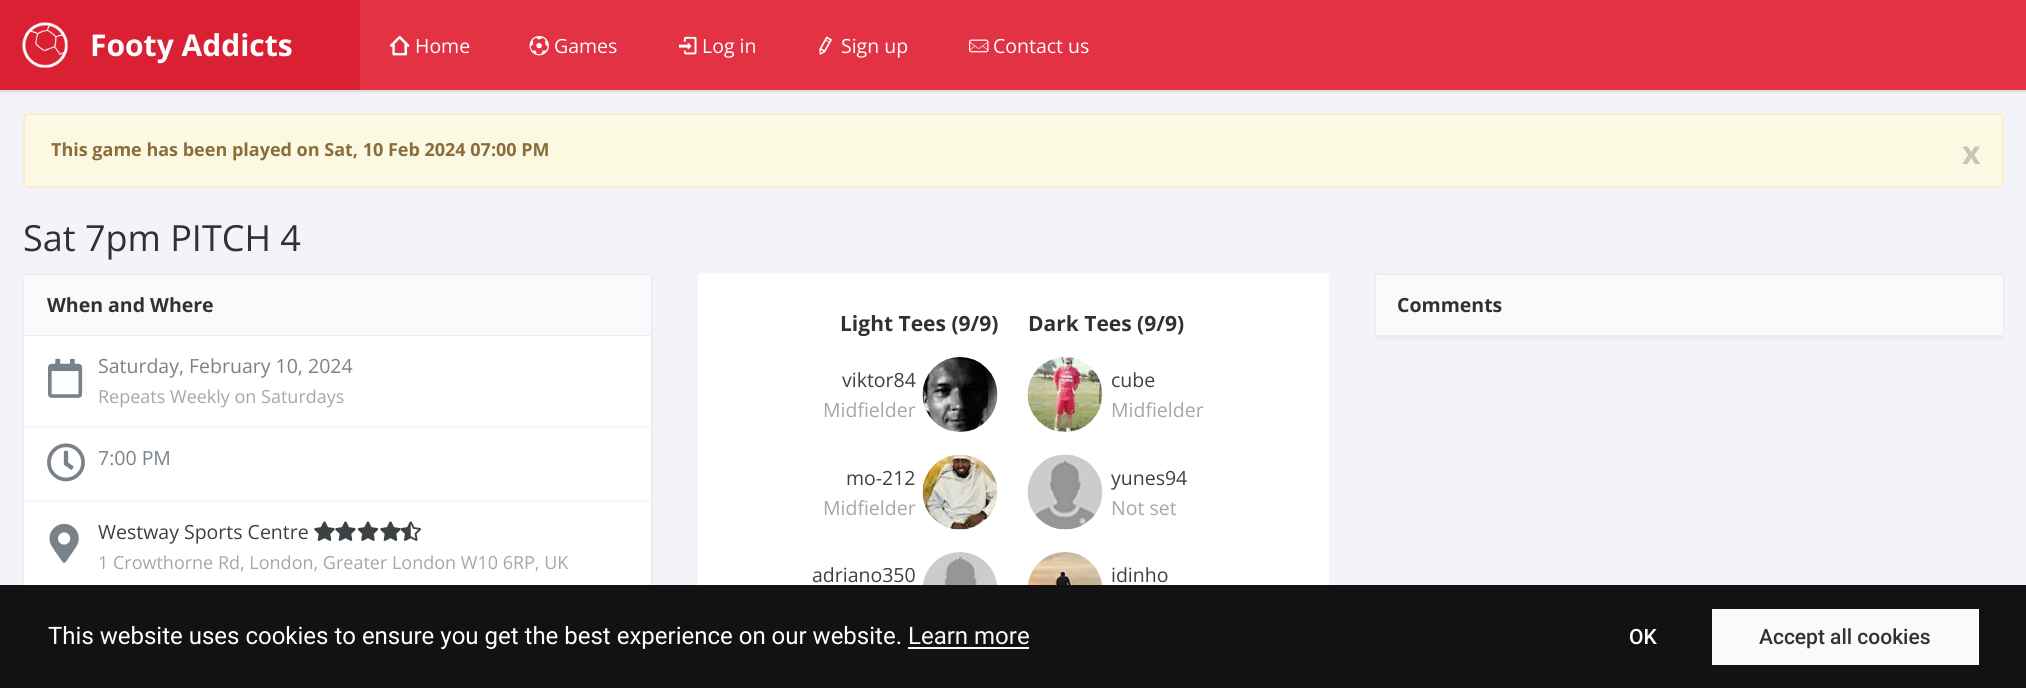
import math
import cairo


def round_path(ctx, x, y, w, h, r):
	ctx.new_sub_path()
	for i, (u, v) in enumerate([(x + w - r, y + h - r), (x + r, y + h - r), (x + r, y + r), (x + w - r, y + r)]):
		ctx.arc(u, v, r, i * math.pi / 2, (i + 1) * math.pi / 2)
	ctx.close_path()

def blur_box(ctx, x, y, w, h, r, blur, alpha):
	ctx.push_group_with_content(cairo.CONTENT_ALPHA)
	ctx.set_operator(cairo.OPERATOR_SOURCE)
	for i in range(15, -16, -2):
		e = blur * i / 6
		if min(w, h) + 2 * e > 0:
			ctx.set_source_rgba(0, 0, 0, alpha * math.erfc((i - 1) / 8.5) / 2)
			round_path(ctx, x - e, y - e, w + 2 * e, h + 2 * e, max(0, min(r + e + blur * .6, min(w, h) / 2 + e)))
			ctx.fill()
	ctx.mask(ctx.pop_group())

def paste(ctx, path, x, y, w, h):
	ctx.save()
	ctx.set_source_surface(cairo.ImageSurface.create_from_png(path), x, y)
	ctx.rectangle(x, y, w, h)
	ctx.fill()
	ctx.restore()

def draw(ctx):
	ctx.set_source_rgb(0.949, 0.957, 0.973)
	ctx.paint()
	ctx.set_source_rgb(0.902, 0.91, 0.925)
	ctx.new_path()
	ctx.move_to(0, 90)
	ctx.line_to(0, 92)
	ctx.line_to(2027, 92)
	ctx.line_to(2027, 2)
	ctx.line_to(2026, 2)
	ctx.line_to(2026, 90)
	ctx.close_path()
	ctx.fill()
	ctx.set_source_rgb(0, 0, 0)
	blur_box(ctx, 0, 3, 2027, 90, 0, 1.5, 0.05)
	ctx.set_source_rgb(0.89, 0.196, 0.267)
	ctx.rectangle(360, 0, 1666, 90)
	ctx.fill()
	ctx.set_source_rgb(0.855, 0.129, 0.204)
	ctx.rectangle(0, 0, 360, 90)
	ctx.fill()
	paste(ctx, 'media/1.png', 22, 22, 46, 46)
	ctx.select_font_face('Open Sans', cairo.FONT_SLANT_NORMAL, cairo.FONT_WEIGHT_BOLD)
	ctx.set_font_size(30)
	ctx.set_source_rgb(1, 1, 1)
	ctx.move_to(90, 56)
	ctx.show_text('Footy Addicts')
	paste(ctx, 'media/2.png', 390, 35, 20, 21)
	ctx.select_font_face('Open Sans')
	ctx.set_font_size(19.5)
	ctx.move_to(415, 53)
	ctx.show_text('Home')
	paste(ctx, 'media/3.png', 529, 35, 20, 21)
	ctx.move_to(554, 53)
	ctx.show_text('Games')
	paste(ctx, 'media/4.png', 679, 36, 18, 19)
	ctx.move_to(702, 53)
	ctx.show_text('Log in')
	paste(ctx, 'media/5.png', 819, 36, 14, 19)
	ctx.move_to(841, 53)
	ctx.show_text('Sign up')
	paste(ctx, 'media/6.png', 969, 39, 20, 14)
	ctx.move_to(993, 53)
	ctx.show_text('Contact us')
	ctx.set_source_rgb(0.988, 0.973, 0.89)
	round_path(ctx, 23, 113, 1981, 75, 6)
	ctx.fill()
	ctx.set_source_rgb(0.992, 0.976, 0.914)
	ctx.new_path()
	ctx.move_to(28, 116)
	ctx.line_to(1998, 116)
	ctx.curve_to(2000, 116, 2002, 118, 2002, 120)
	ctx.line_to(2002, 184)
	ctx.curve_to(2003, 183, 2003, 182, 2003, 181)
	ctx.line_to(2003, 119)
	ctx.curve_to(2003, 116, 2001, 114, 1998, 114)
	ctx.line_to(29, 114)
	ctx.curve_to(26, 114, 24, 116, 24, 119)
	ctx.line_to(24, 120)
	ctx.curve_to(24, 118, 26, 116, 28, 116)
	ctx.close_path()
	ctx.fill()
	round_path(ctx, 24, 114, 1979, 73, 5)
	ctx.set_source_rgb(0.98, 0.922, 0.8)
	ctx.stroke()
	ctx.select_font_face('Open Sans', cairo.FONT_SLANT_NORMAL, cairo.FONT_WEIGHT_BOLD)
	ctx.set_font_size(18)
	ctx.set_source_rgb(0.541, 0.427, 0.231)
	ctx.move_to(51, 156)
	ctx.show_text('This game has been played on Sat, 10 Feb 2024 07:00 PM')
	ctx.set_font_size(32)
	ctx.set_source_rgb(0.792, 0.776, 0.714)
	ctx.move_to(1962, 164)
	ctx.show_text('x')
	ctx.select_font_face('Open Sans')
	ctx.set_font_size(36)
	ctx.set_source_rgb(0.188, 0.192, 0.196)
	ctx.move_to(23, 251)
	ctx.show_text('Sat 7pm PITCH 4')
	ctx.set_source_rgb(1, 1, 1)
	ctx.new_path()
	ctx.move_to(26, 273)
	ctx.line_to(650, 273)
	ctx.curve_to(651.5, 273, 653, 274.5, 653, 276)
	ctx.line_to(653, 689)
	ctx.line_to(23, 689)
	ctx.line_to(23, 276)
	ctx.curve_to(23, 274.5, 24.5, 273, 26, 273)
	ctx.close_path()
	ctx.fill()
	round_path(ctx, 24, 274, 628, 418, 2)
	ctx.set_source_rgb(0.918, 0.933, 0.945)
	ctx.stroke()
	ctx.set_source_rgb(0.976, 0.98, 0.988)
	ctx.new_path()
	ctx.move_to(27, 275)
	ctx.line_to(648, 275)
	ctx.curve_to(649.5, 275, 651, 276.5, 651, 278)
	ctx.line_to(651, 336)
	ctx.line_to(24, 336)
	ctx.line_to(24, 278)
	ctx.curve_to(24, 276.5, 25.5, 275, 27, 275)
	ctx.close_path()
	ctx.fill()
	ctx.set_source_rgb(0.918, 0.933, 0.945)
	ctx.rectangle(24, 335, 627, 1)
	ctx.fill()
	ctx.select_font_face('Open Sans', cairo.FONT_SLANT_NORMAL, cairo.FONT_WEIGHT_BOLD)
	ctx.set_font_size(19.5)
	ctx.set_source_rgb(0.188, 0.192, 0.196)
	ctx.move_to(47, 312)
	ctx.show_text('When and Where')
	ctx.set_source_rgb(1, 1, 1)
	ctx.rectangle(24, 336, 1, 90)
	ctx.fill()
	ctx.set_source_rgb(0.953, 0.961, 0.969)
	ctx.rectangle(24, 426, 627, 2)
	ctx.fill()
	paste(ctx, 'media/7.png', 48, 358, 35, 40)
	ctx.select_font_face('Open Sans')
	ctx.set_source_rgb(0.471, 0.51, 0.533)
	ctx.move_to(98, 373)
	ctx.show_text('Saturday, February 10, 2024')
	ctx.set_font_size(18)
	ctx.set_source_rgb(0.631, 0.659, 0.675)
	ctx.move_to(98, 403)
	ctx.show_text('Repeats Weekly on Saturdays')
	ctx.set_source_rgb(1, 1, 1)
	ctx.rectangle(24, 428, 1, 72)
	ctx.fill()
	paste(ctx, 'media/8.png', 47, 443, 38, 39)
	ctx.set_font_size(19.5)
	ctx.set_source_rgb(0.471, 0.51, 0.533)
	ctx.move_to(98, 465)
	ctx.show_text('7:00 PM')
	ctx.set_source_rgb(1, 1, 1)
	ctx.rectangle(24, 502, 1, 83)
	ctx.fill()
	ctx.set_source_rgb(0.953, 0.961, 0.969)
	ctx.rectangle(24, 500, 627, 2)
	ctx.fill()
	paste(ctx, 'media/9.png', 49, 523, 30, 40)
	ctx.set_source_rgb(0.235, 0.255, 0.267)
	ctx.move_to(98, 539)
	ctx.show_text('Westway Sports Centre')
	paste(ctx, 'media/10.png', 314, 521, 21, 20)
	paste(ctx, 'media/10.png', 335, 521, 21, 20)
	paste(ctx, 'media/11.png', 357, 521, 22, 20)
	paste(ctx, 'media/10.png', 380, 521, 21, 20)
	paste(ctx, 'media/12.png', 400, 521, 21, 20)
	ctx.set_font_size(18)
	ctx.set_source_rgb(0.631, 0.659, 0.675)
	ctx.move_to(98, 569)
	ctx.show_text('1 Crowthorne Rd, London, Greater London W10 6RP, UK')
	ctx.set_source_rgb(0, 0, 0)
	blur_box(ctx, 1374, 275, 630, 64, 3, 1, 0.05)
	ctx.set_source_rgb(1, 1, 1)
	round_path(ctx, 1375, 274, 628, 63, 2)
	ctx.fill_preserve()
	ctx.set_source_rgb(0.918, 0.933, 0.945)
	ctx.stroke()
	ctx.set_source_rgb(0.976, 0.98, 0.988)
	ctx.new_path()
	ctx.move_to(1379, 275)
	ctx.line_to(2000, 275)
	ctx.curve_to(2001.5, 275, 2003, 276.5, 2003, 278)
	ctx.line_to(2003, 336)
	ctx.line_to(1376, 336)
	ctx.line_to(1376, 278)
	ctx.curve_to(1376, 276.5, 1377.5, 275, 1379, 275)
	ctx.close_path()
	ctx.fill()
	ctx.set_source_rgb(0.918, 0.933, 0.945)
	ctx.rectangle(1376, 335, 627, 1)
	ctx.fill()
	ctx.select_font_face('Open Sans', cairo.FONT_SLANT_NORMAL, cairo.FONT_WEIGHT_BOLD)
	ctx.set_font_size(19.5)
	ctx.set_source_rgb(0.188, 0.192, 0.196)
	ctx.move_to(1397, 312)
	ctx.show_text('Comments')
	ctx.set_source_rgb(1, 1, 1)
	ctx.new_path()
	ctx.move_to(701, 273)
	ctx.line_to(1326, 273)
	ctx.curve_to(1327.5, 273, 1329, 274.5, 1329, 276)
	ctx.line_to(1329, 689)
	ctx.line_to(698, 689)
	ctx.line_to(698, 276)
	ctx.curve_to(698, 274.5, 699.5, 273, 701, 273)
	ctx.close_path()
	ctx.fill()
	ctx.set_font_size(21)
	ctx.set_source_rgb(0.188, 0.192, 0.196)
	ctx.move_to(840, 331)
	ctx.show_text('Light Tees (9/9)')
	ctx.select_font_face('Open Sans')
	ctx.set_font_size(19.5)
	ctx.set_source_rgb(0.235, 0.255, 0.267)
	ctx.move_to(842, 387)
	ctx.show_text('viktor84')
	paste(ctx, 'media/13.png', 922, 357, 76, 75)
	ctx.set_source_rgb(0.631, 0.659, 0.675)
	ctx.move_to(823, 417)
	ctx.show_text('Midfielder')
	ctx.set_source_rgb(0.235, 0.255, 0.267)
	ctx.move_to(846, 485)
	ctx.show_text('mo-212')
	paste(ctx, 'media/14.png', 922, 454, 76, 76)
	ctx.set_source_rgb(0.631, 0.659, 0.675)
	ctx.move_to(823, 515)
	ctx.show_text('Midfielder')
	ctx.set_source_rgb(0.235, 0.255, 0.267)
	ctx.move_to(812, 582)
	ctx.show_text('adriano350')
	paste(ctx, 'media/15.png', 923, 552, 74, 33)
	ctx.select_font_face('Open Sans', cairo.FONT_SLANT_NORMAL, cairo.FONT_WEIGHT_BOLD)
	ctx.set_font_size(21)
	ctx.set_source_rgb(0.188, 0.192, 0.196)
	ctx.move_to(1028, 331)
	ctx.show_text('Dark Tees (9/9)')
	paste(ctx, 'media/16.png', 1027, 357, 76, 75)
	ctx.select_font_face('Open Sans')
	ctx.set_font_size(19.5)
	ctx.set_source_rgb(0.235, 0.255, 0.267)
	ctx.move_to(1111, 387)
	ctx.show_text('cube')
	ctx.set_source_rgb(0.631, 0.659, 0.675)
	ctx.move_to(1111, 417)
	ctx.show_text('Midfielder')
	paste(ctx, 'media/17.png', 1027, 454, 76, 76)
	ctx.set_source_rgb(0.235, 0.255, 0.267)
	ctx.move_to(1111, 485)
	ctx.show_text('yunes94')
	ctx.set_source_rgb(0.631, 0.659, 0.675)
	ctx.move_to(1111, 515)
	ctx.show_text('Not set')
	paste(ctx, 'media/18.png', 1028, 552, 74, 33)
	ctx.set_source_rgb(0.235, 0.255, 0.267)
	ctx.move_to(1111, 582)
	ctx.show_text('idinho')
	ctx.set_source_rgb(0.071, 0.071, 0.078)
	ctx.rectangle(0, 585, 2026, 103)
	ctx.fill()
	ctx.select_font_face('Roboto')
	ctx.set_font_size(24)
	ctx.set_source_rgb(1, 1, 1)
	ctx.move_to(48, 644)
	ctx.show_text('This website uses cookies to ensure you get the best experience on our website.')
	ctx.set_source_rgb(0.969, 0.98, 0.988)
	ctx.move_to(908, 644)
	ctx.show_text('Learn more')
	ctx.rectangle(908, 647, 121, 2)
	ctx.fill()
	ctx.select_font_face('Roboto Medium')
	ctx.set_font_size(21)
	ctx.set_source_rgb(1, 1, 1)
	ctx.move_to(1629, 644)
	ctx.show_text('OK')
	ctx.set_source_rgb(0.969, 0.98, 0.988)
	ctx.rectangle(1712, 609, 267, 56)
	ctx.fill()
	ctx.set_source_rgb(0.188, 0.192, 0.196)
	ctx.move_to(1759, 644)
	ctx.show_text('Accept all cookies')


surface = cairo.ImageSurface(cairo.FORMAT_RGB24, 2026, 688)
ctx = cairo.Context(surface)
options = cairo.FontOptions()
options.set_hint_metrics(cairo.HINT_METRICS_OFF)
options.set_hint_style(cairo.HINT_STYLE_NONE)
ctx.set_font_options(options)
ctx.set_miter_limit(4)
draw(ctx)
surface.write_to_png('image.png')
